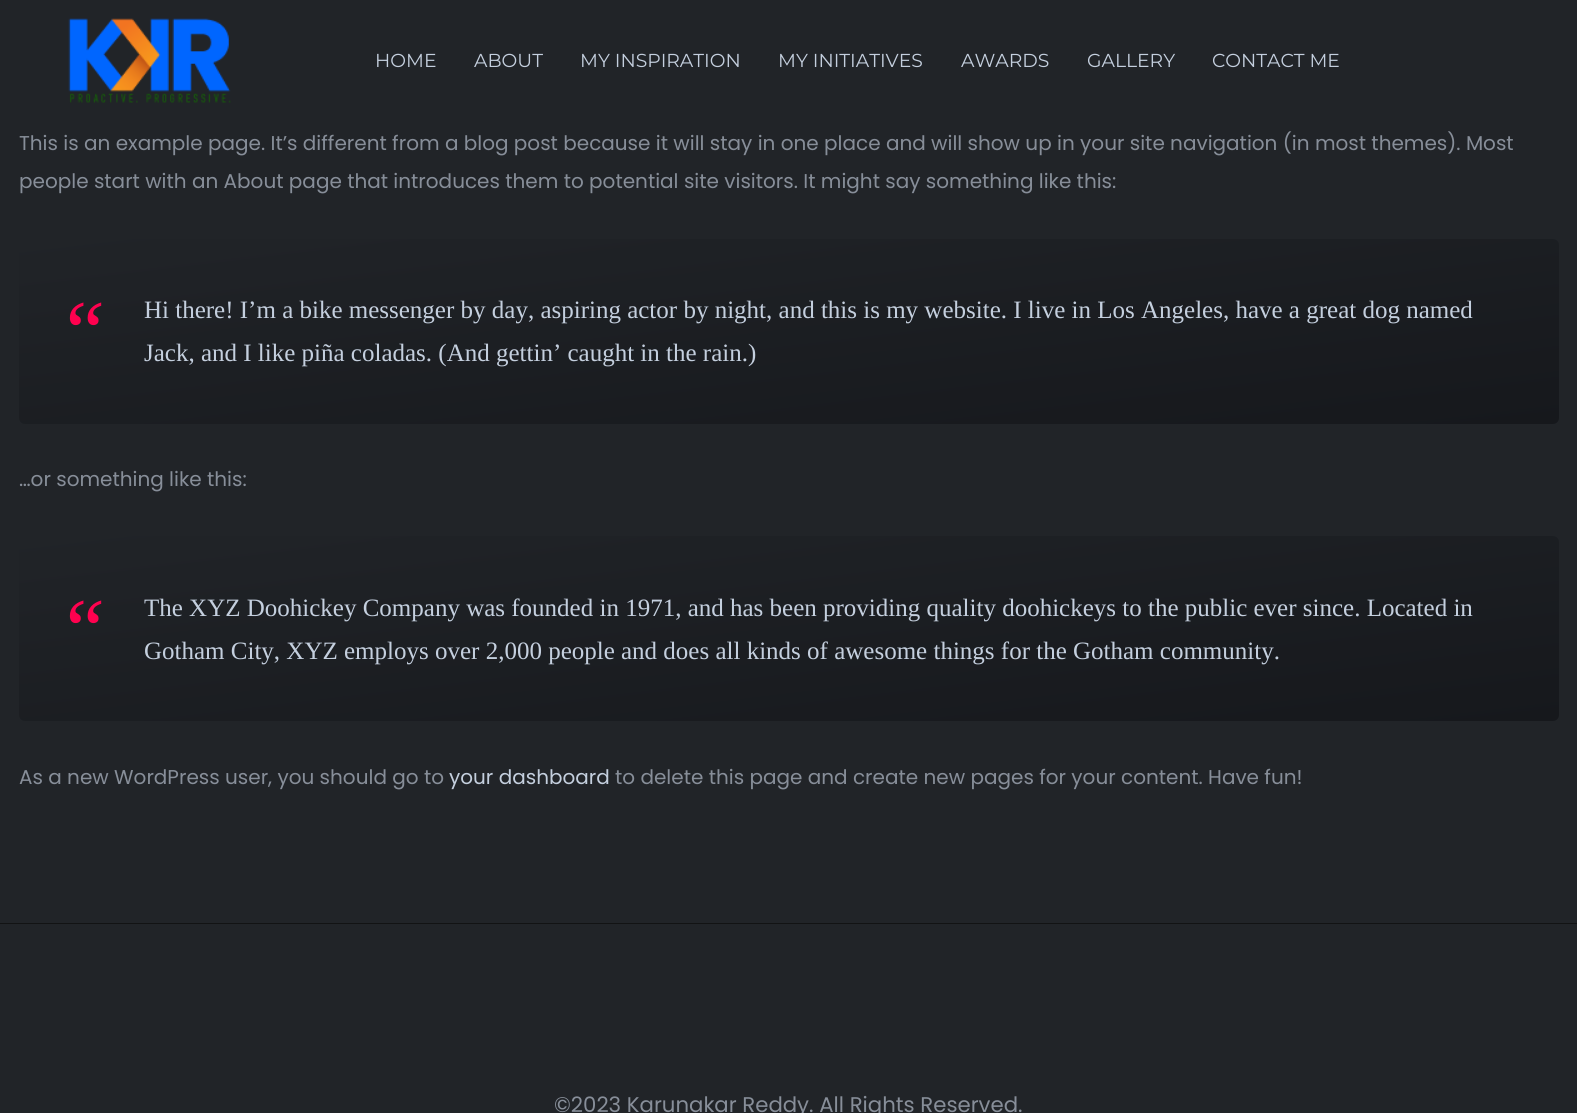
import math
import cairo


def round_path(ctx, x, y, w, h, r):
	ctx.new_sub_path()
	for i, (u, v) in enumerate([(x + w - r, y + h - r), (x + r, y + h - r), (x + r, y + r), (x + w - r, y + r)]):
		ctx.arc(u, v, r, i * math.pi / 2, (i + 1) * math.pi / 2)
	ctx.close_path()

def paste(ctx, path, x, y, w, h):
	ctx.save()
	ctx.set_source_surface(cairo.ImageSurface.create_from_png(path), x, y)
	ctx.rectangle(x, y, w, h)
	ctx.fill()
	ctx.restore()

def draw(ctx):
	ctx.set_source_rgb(0.129, 0.141, 0.157)
	ctx.paint()
	paste(ctx, 'media/1.png', 68, 18, 163, 85)
	ctx.select_font_face('Montserrat')
	ctx.set_font_size(18.75)
	ctx.set_source_rgb(0.769, 0.812, 0.871)
	for x, y, s in [
		(375, 67, 'HOME'),
		(474, 67, 'ABOUT'),
		(580, 67, 'MY INSPIRATION'),
		(778, 67, 'MY INITIATIVES'),
		(961, 67, 'AWARDS'),
		(1087, 67, 'GALLERY'),
		(1212, 67, 'CONTACT ME'),
	]:
		ctx.move_to(x, y)
		ctx.show_text(s)
	ctx.select_font_face('Poppins')
	ctx.set_font_size(20)
	ctx.set_source_rgb(0.529, 0.557, 0.6)
	ctx.move_to(19, 150)
	ctx.show_text('This is an example page. It’s different from a blog post because it will stay in one place and will show up in your site navigation (in most themes). Most')
	ctx.move_to(19, 188)
	ctx.show_text('people start with an About page that introduces them to potential site visitors. It might say something like this:')
	gradient = cairo.LinearGradient(767, 149, 811, 514)
	gradient.add_color_stop_rgba(0, 0.129, 0.141, 0.157, 1)
	gradient.add_color_stop_rgba(1, 0.086, 0.094, 0.11, 1)
	ctx.set_source(gradient)
	round_path(ctx, 19, 239, 1540, 185, 6)
	ctx.fill()
	ctx.select_font_face('Liberation Serif', cairo.FONT_SLANT_ITALIC)
	ctx.set_font_size(88)
	ctx.set_source_rgb(1, 0.004, 0.31)
	ctx.move_to(57, 361)
	ctx.show_text('“')
	ctx.select_font_face('Liberation Serif')
	ctx.set_font_size(25)
	ctx.set_source_rgb(0.769, 0.812, 0.871)
	ctx.move_to(144, 318)
	ctx.show_text('Hi there! I’m a bike messenger by day, aspiring actor by night, and this is my website. I live in Los Angeles, have a great dog named')
	ctx.move_to(144, 361)
	ctx.show_text('Jack, and I like piña coladas. (And gettin’ caught in the rain.)')
	ctx.select_font_face('Poppins')
	ctx.set_font_size(20)
	ctx.set_source_rgb(0.529, 0.557, 0.6)
	ctx.move_to(19, 486)
	ctx.show_text('…or something like this:')
	gradient = cairo.LinearGradient(767, 446, 811, 811)
	gradient.add_color_stop_rgba(0, 0.129, 0.141, 0.157, 1)
	gradient.add_color_stop_rgba(1, 0.086, 0.094, 0.11, 1)
	ctx.set_source(gradient)
	round_path(ctx, 19, 536, 1540, 185, 6)
	ctx.fill()
	ctx.select_font_face('Liberation Serif', cairo.FONT_SLANT_ITALIC)
	ctx.set_font_size(88)
	ctx.set_source_rgb(1, 0.004, 0.31)
	ctx.move_to(57, 659)
	ctx.show_text('“')
	ctx.select_font_face('Liberation Serif')
	ctx.set_font_size(25)
	ctx.set_source_rgb(0.769, 0.812, 0.871)
	ctx.move_to(144, 616)
	ctx.show_text('The XYZ Doohickey Company was founded in 1971, and has been providing quality doohickeys to the public ever since. Located in')
	ctx.move_to(144, 659)
	ctx.show_text('Gotham City, XYZ employs over 2,000 people and does all kinds of awesome things for the Gotham community.')
	ctx.select_font_face('Poppins')
	ctx.set_font_size(20)
	ctx.set_source_rgb(0.529, 0.557, 0.6)
	ctx.move_to(19, 784)
	ctx.show_text('As a new WordPress user, you should go to')
	ctx.set_source_rgb(0.769, 0.812, 0.871)
	ctx.move_to(449, 784)
	ctx.show_text('your dashboard')
	ctx.set_source_rgb(0.529, 0.557, 0.6)
	ctx.move_to(615, 784)
	ctx.show_text('to delete this page and create new pages for your content. Have fun!')
	ctx.set_source_rgb(0.071, 0.078, 0.082)
	ctx.rectangle(0, 923, 1577, 1)
	ctx.fill()
	ctx.set_font_size(21.25)
	ctx.set_source_rgb(0.529, 0.557, 0.6)
	ctx.move_to(554, 1112)
	ctx.show_text('©2023 Karunakar Reddy. All Rights Reserved.')


surface = cairo.ImageSurface(cairo.FORMAT_RGB24, 1577, 1113)
ctx = cairo.Context(surface)
options = cairo.FontOptions()
options.set_hint_metrics(cairo.HINT_METRICS_OFF)
options.set_hint_style(cairo.HINT_STYLE_NONE)
ctx.set_font_options(options)
ctx.set_miter_limit(4)
draw(ctx)
surface.write_to_png('image.png')
